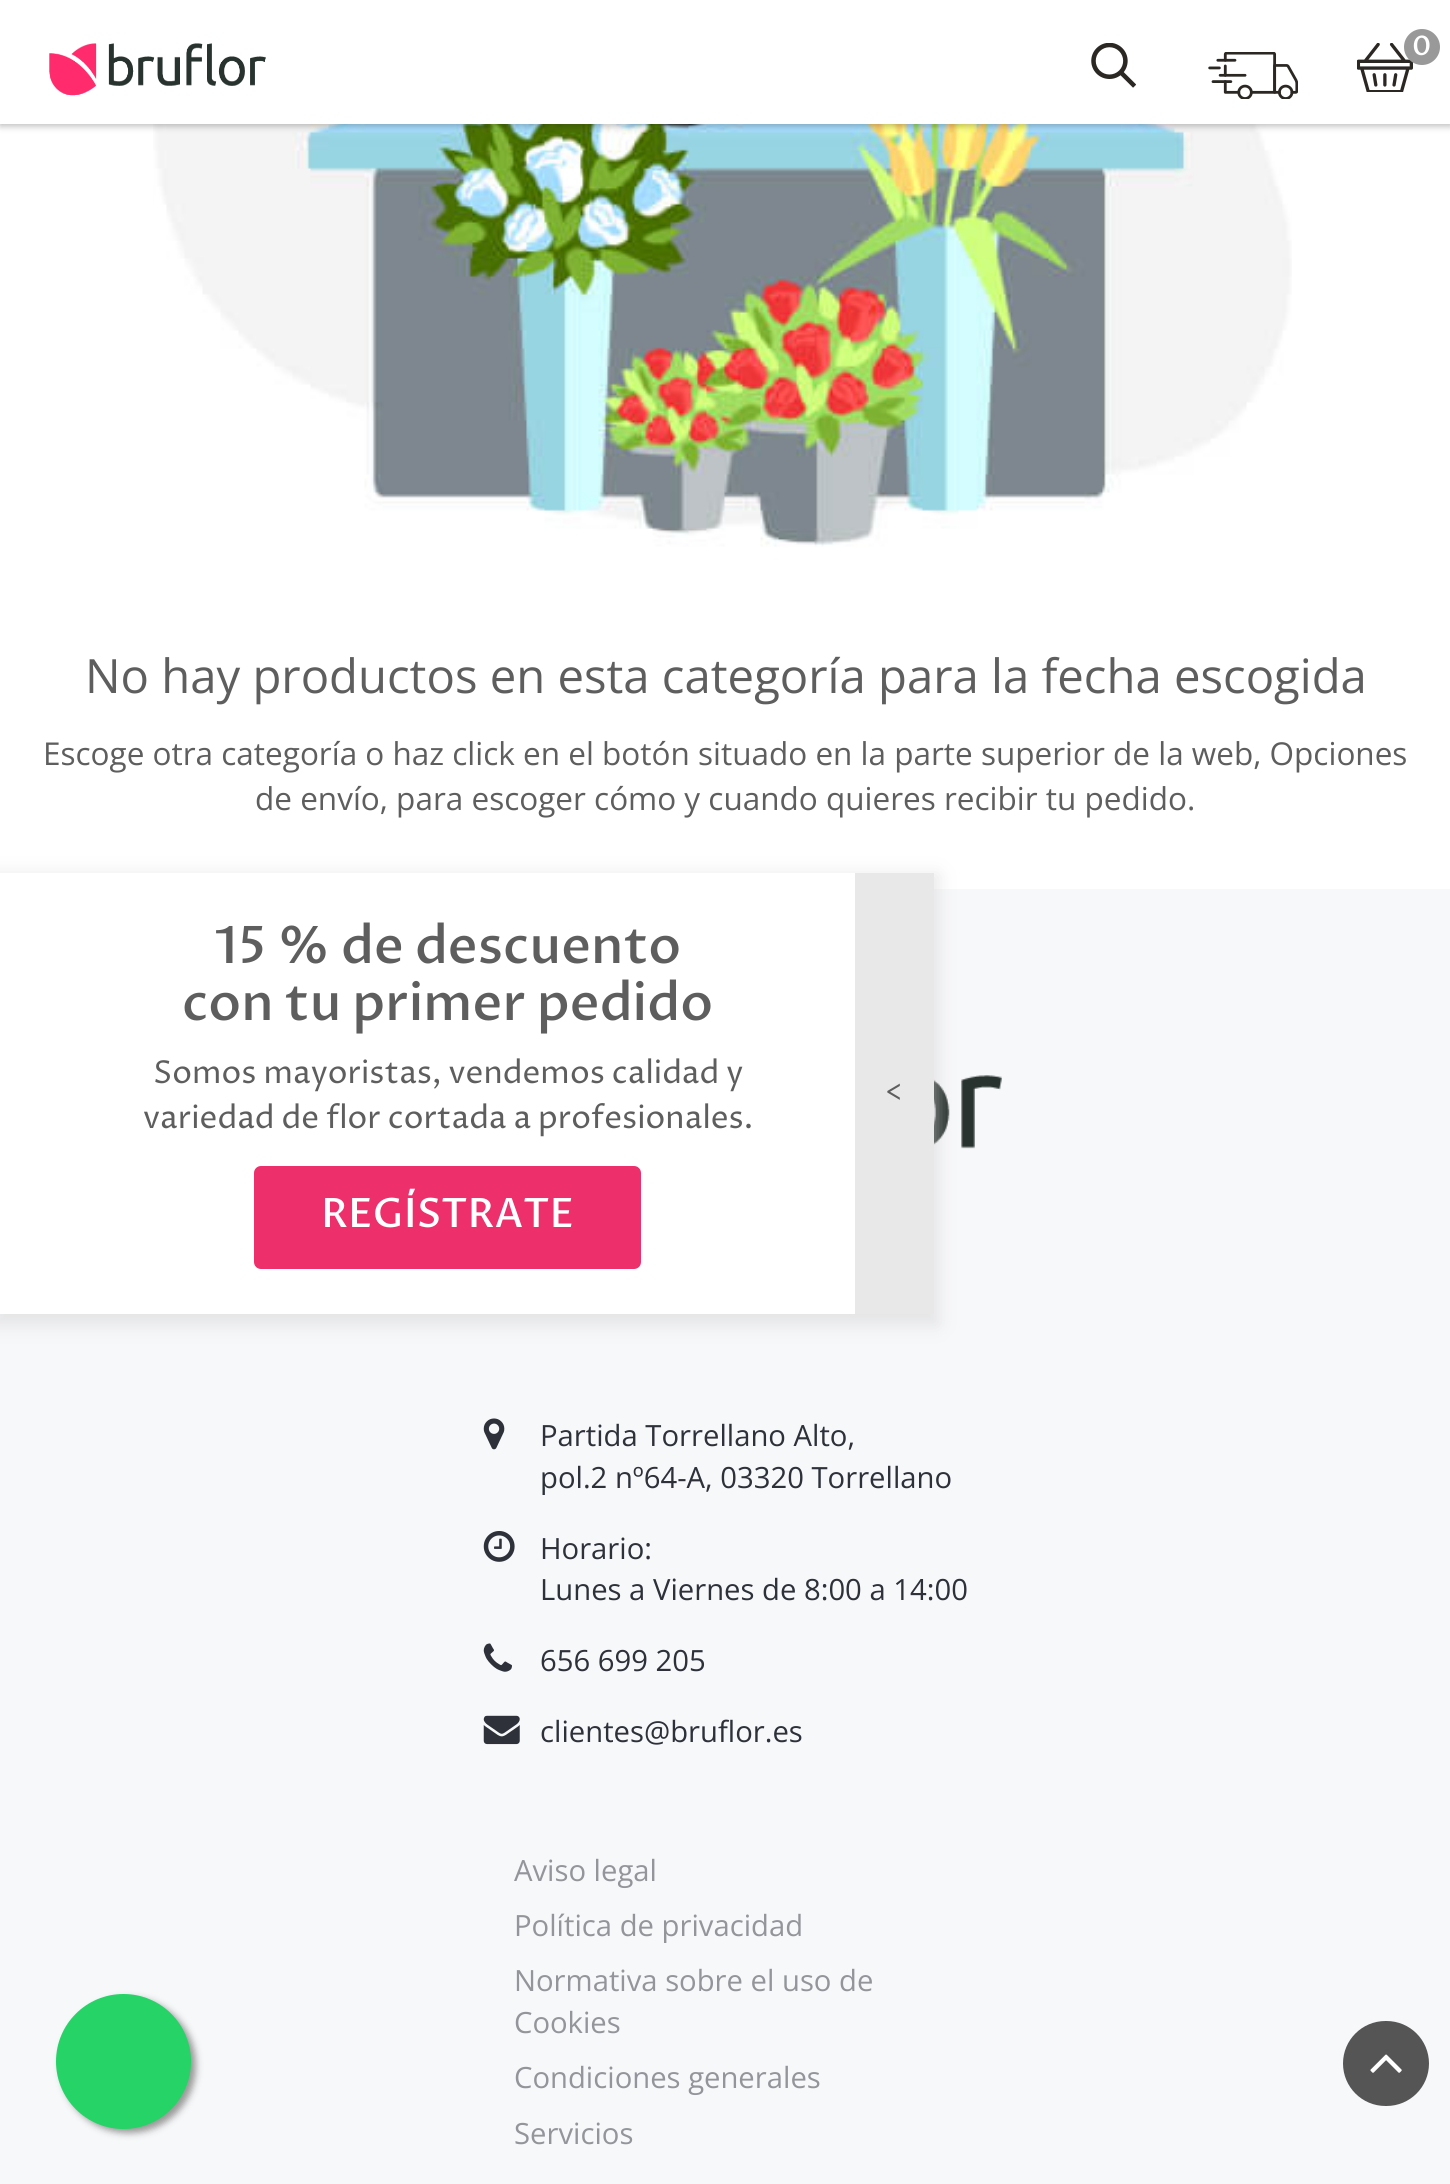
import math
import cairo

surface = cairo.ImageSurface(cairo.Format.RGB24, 1450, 2184)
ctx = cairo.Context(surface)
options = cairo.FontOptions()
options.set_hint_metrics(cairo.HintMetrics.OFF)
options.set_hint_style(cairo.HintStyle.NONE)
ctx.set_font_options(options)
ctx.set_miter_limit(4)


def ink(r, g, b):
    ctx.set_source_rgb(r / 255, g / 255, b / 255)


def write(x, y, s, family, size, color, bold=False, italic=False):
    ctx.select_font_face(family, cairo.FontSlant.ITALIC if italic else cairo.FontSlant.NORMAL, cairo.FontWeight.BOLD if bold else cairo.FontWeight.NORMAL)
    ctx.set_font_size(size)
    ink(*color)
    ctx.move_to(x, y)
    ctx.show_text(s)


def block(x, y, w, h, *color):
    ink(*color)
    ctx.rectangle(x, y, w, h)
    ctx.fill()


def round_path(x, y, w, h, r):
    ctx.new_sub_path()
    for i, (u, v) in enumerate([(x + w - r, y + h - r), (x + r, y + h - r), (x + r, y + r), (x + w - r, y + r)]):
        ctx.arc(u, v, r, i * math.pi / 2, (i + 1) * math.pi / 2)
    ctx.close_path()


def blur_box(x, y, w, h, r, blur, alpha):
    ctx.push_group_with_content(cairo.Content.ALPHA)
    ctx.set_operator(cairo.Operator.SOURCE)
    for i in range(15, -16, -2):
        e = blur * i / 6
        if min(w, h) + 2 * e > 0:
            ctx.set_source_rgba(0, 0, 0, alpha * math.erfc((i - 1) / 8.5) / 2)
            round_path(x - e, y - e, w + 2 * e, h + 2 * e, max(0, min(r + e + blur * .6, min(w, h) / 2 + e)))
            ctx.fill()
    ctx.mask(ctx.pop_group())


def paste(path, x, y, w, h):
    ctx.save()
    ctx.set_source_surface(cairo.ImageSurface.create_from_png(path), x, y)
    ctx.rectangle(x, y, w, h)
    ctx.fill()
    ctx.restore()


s1 = dict(family="Proza Libre Medium", size=27, color=(255, 255, 255))
s2 = dict(family="Open Sans", size=47.25, color=(94, 94, 94))
s3 = dict(family="Open Sans", size=31.5, color=(94, 94, 94))
s4 = dict(family="Open Sans", size=29.25, color=(46, 49, 58))
s5 = dict(family="Open Sans", size=29.25, color=(147, 149, 154))
s6 = dict(family="Proza Libre Medium", size=51.75, color=(94, 94, 94))
s7 = dict(family="Proza Libre", size=31.5, color=(94, 94, 94))
s8 = dict(family="Proza Libre Medium", size=40.5, color=(255, 255, 255))

ink(255, 255, 255)
ctx.paint()
paste("pic5.png", 153, 124, 1139, 423)
ink(25, 25, 25)
blur_box(0, 2, 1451, 124, 0, 3.5, 0.3)
block(0, 0, 1450, 124, 255, 255, 255)
paste("pic1.png", 49, 43, 217, 53)
paste("pic2.png", 1091, 43, 45, 45)
paste("pic3.png", 1208, 52, 90, 47)
paste("pic4.png", 1357, 43, 56, 49)
ink(153, 153, 153)
ctx.arc(1422, 47, 18, 0, 2 * math.pi)
ctx.fill()
write(1412, 55, "0", **s1)
block(0, 889, 1450, 1295, 247, 248, 250)
ink(153, 153, 153)
blur_box(61, 1998, 135, 135, 67.5, 3.5, 1)
ink(37, 211, 102)
ctx.arc(123.5, 2061.5, 67.5, 0, 2 * math.pi)
ctx.fill()
write(85, 693, "No hay productos en esta categoría para la fecha escogida", **s2)
write(43, 765, "Escoge otra categoría o haz click en el botón situado en la parte superior de la web, Opciones", **s3)
write(255, 810, "de envío, para escoger cómo y cuando quieres recibir tu pedido.", **s3)
paste("pic6.png", 934, 1075, 68, 74)
paste("pic7.png", 483, 1418, 22, 32)
write(540, 1446, "Partida Torrellano Alto,", **s4)
write(540, 1488, "pol.2 nº64-A, 03320 Torrellano", **s4)
paste("pic8.png", 483, 1531, 32, 31)
write(540, 1559, "Horario:", **s4)
write(540, 1600, "Lunes a Viernes de 8:00 a 14:00", **s4)
paste("pic9.png", 483, 1643, 29, 29)
write(540, 1671, "656 699 205", **s4)
paste("pic10.png", 483, 1715, 37, 30)
write(540, 1742, "clientes@bruflor.es", **s4)
write(514, 1881, "Aviso legal", **s5)
write(514, 1936, "Política de privacidad", **s5)
write(514, 1991, "Normativa sobre el uso de", **s5)
write(514, 2033, "Cookies", **s5)
write(514, 2088, "Condiciones generales", **s5)
write(514, 2144, "Servicios", **s5)
ink(211, 211, 211)
blur_box(-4, 875, 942, 450, 0, 9, 0.55)
block(0, 873, 855, 441, 255, 255, 255)
write(214, 963, "15 % de descuento", **s6)
write(182, 1020, "con tu primer pedido", **s6)
write(153, 1083, "Somos mayoristas, vendemos calidad y", **s7)
write(143, 1128, "variedad de flor cortada a profesionales.", **s7)
ink(237, 47, 107)
round_path(254, 1166, 387, 103, 7)
ctx.fill()
write(321, 1227, "REGÍSTRATE", **s8)
block(855, 873, 79, 441, 232, 232, 232)
write(885, 1101, "<", **s7)
ink(85, 85, 85)
round_path(1343, 2021, 86, 85, 42.5)
ctx.fill()
paste("pic11.png", 1370, 2054, 32, 19)
surface.write_to_png("screenshot.png")
